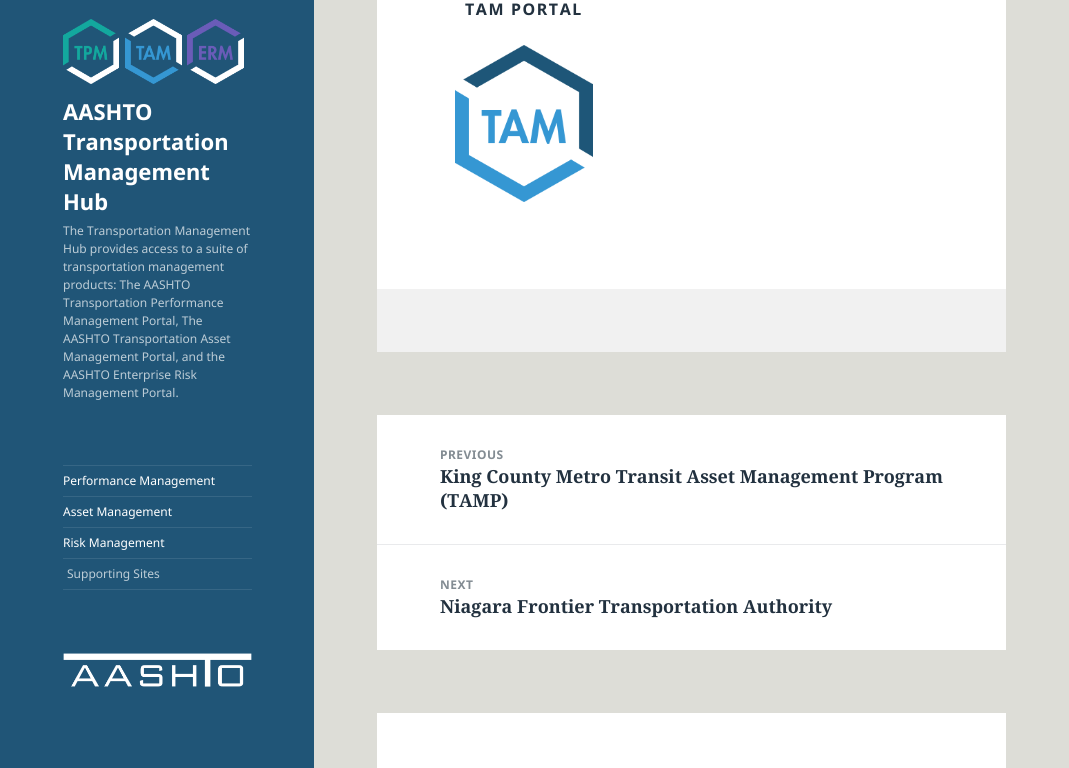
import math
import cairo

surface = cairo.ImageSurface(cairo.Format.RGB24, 1069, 768)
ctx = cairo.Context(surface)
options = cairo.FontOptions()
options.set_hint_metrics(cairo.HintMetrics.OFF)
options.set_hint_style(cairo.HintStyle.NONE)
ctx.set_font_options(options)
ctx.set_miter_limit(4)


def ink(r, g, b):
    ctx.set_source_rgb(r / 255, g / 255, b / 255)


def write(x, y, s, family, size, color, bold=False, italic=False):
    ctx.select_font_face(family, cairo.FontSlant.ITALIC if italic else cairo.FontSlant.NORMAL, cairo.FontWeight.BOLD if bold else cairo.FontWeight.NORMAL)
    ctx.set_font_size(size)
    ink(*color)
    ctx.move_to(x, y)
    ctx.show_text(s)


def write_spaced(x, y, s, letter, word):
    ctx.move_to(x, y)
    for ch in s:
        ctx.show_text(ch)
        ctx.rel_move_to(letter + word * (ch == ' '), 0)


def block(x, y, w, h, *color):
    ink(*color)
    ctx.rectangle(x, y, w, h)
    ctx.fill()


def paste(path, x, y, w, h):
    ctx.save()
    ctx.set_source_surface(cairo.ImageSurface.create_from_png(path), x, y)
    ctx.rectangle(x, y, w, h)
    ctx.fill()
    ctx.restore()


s1 = dict(family="Noto Sans", size=22, color=(255, 255, 255), bold=True)
s2 = dict(family="Noto Sans", size=12, color=(188, 204, 214))
s3 = dict(family="Noto Sans", size=12, color=(255, 255, 255))
s4 = dict(family="Noto Serif", size=18, color=(34, 49, 63), bold=True)

ink(221, 221, 215)
ctx.paint()
block(0, 0, 314, 768, 32, 85, 119)
paste("pic1.png", 63, 19, 56, 65)
paste("pic2.png", 125, 19, 57, 65)
paste("pic3.png", 187, 19, 57, 65)
write(63, 120, "AASHTO", **s1)
write(63, 150, "Transportation", **s1)
write(63, 180, "Management", **s1)
write(63, 210, "Hub", **s1)
write(63, 235, "The Transportation Management", **s2)
write(63, 253, "Hub provides access to a suite of", **s2)
write(63, 271, "transportation management", **s2)
write(63, 289, "products: The AASHTO", **s2)
write(63, 307, "Transportation Performance", **s2)
write(63, 325, "Management Portal, The", **s2)
write(63, 343, "AASHTO Transportation Asset", **s2)
write(63, 361, "Management Portal, and the", **s2)
write(63, 379, "AASHTO Enterprise Risk", **s2)
write(63, 397, "Management Portal.", **s2)
block(63, 465, 189, 1, 54, 102, 133)
block(63, 589, 189, 1, 54, 102, 133)
write(63, 485, "Performance Management", **s3)
block(63, 496, 189, 1, 54, 102, 133)
write(63, 516, "Asset Management", **s3)
block(63, 527, 189, 1, 54, 102, 133)
write(63, 547, "Risk Management", **s3)
block(63, 558, 189, 1, 54, 102, 133)
write(67, 578, "Supporting Sites", **s2)
paste("pic4.png", 63, 653, 189, 34)
block(377, 0, 629, 289, 255, 255, 255)
ctx.select_font_face("Noto Sans", cairo.FontSlant.NORMAL, cairo.FontWeight.BOLD)
ctx.set_font_size(16)
ink(34, 49, 63)
write_spaced(465, 15, "TAM PORTAL", 1.6, 0)
paste("pic5.png", 455, 45, 138, 157)
block(377, 289, 629, 63, 241, 241, 241)
block(377, 415, 629, 235, 255, 255, 255)
ctx.set_font_size(12)
ink(131, 140, 147)
write_spaced(440, 459, "PREVIOUS", 0.5, 0)
write(440, 483, "King County Metro Transit Asset Management Program", **s4)
write(440, 507, "(TAMP)", **s4)
block(377, 544, 629, 1, 233, 234, 236)
ctx.select_font_face("Noto Sans", cairo.FontSlant.NORMAL, cairo.FontWeight.BOLD)
ctx.set_font_size(12)
ink(131, 140, 147)
write_spaced(440, 589, "NEXT", 0.5, 0)
write(440, 613, "Niagara Frontier Transportation Authority", **s4)
block(377, 713, 629, 55, 255, 255, 255)
surface.write_to_png("screenshot.png")
